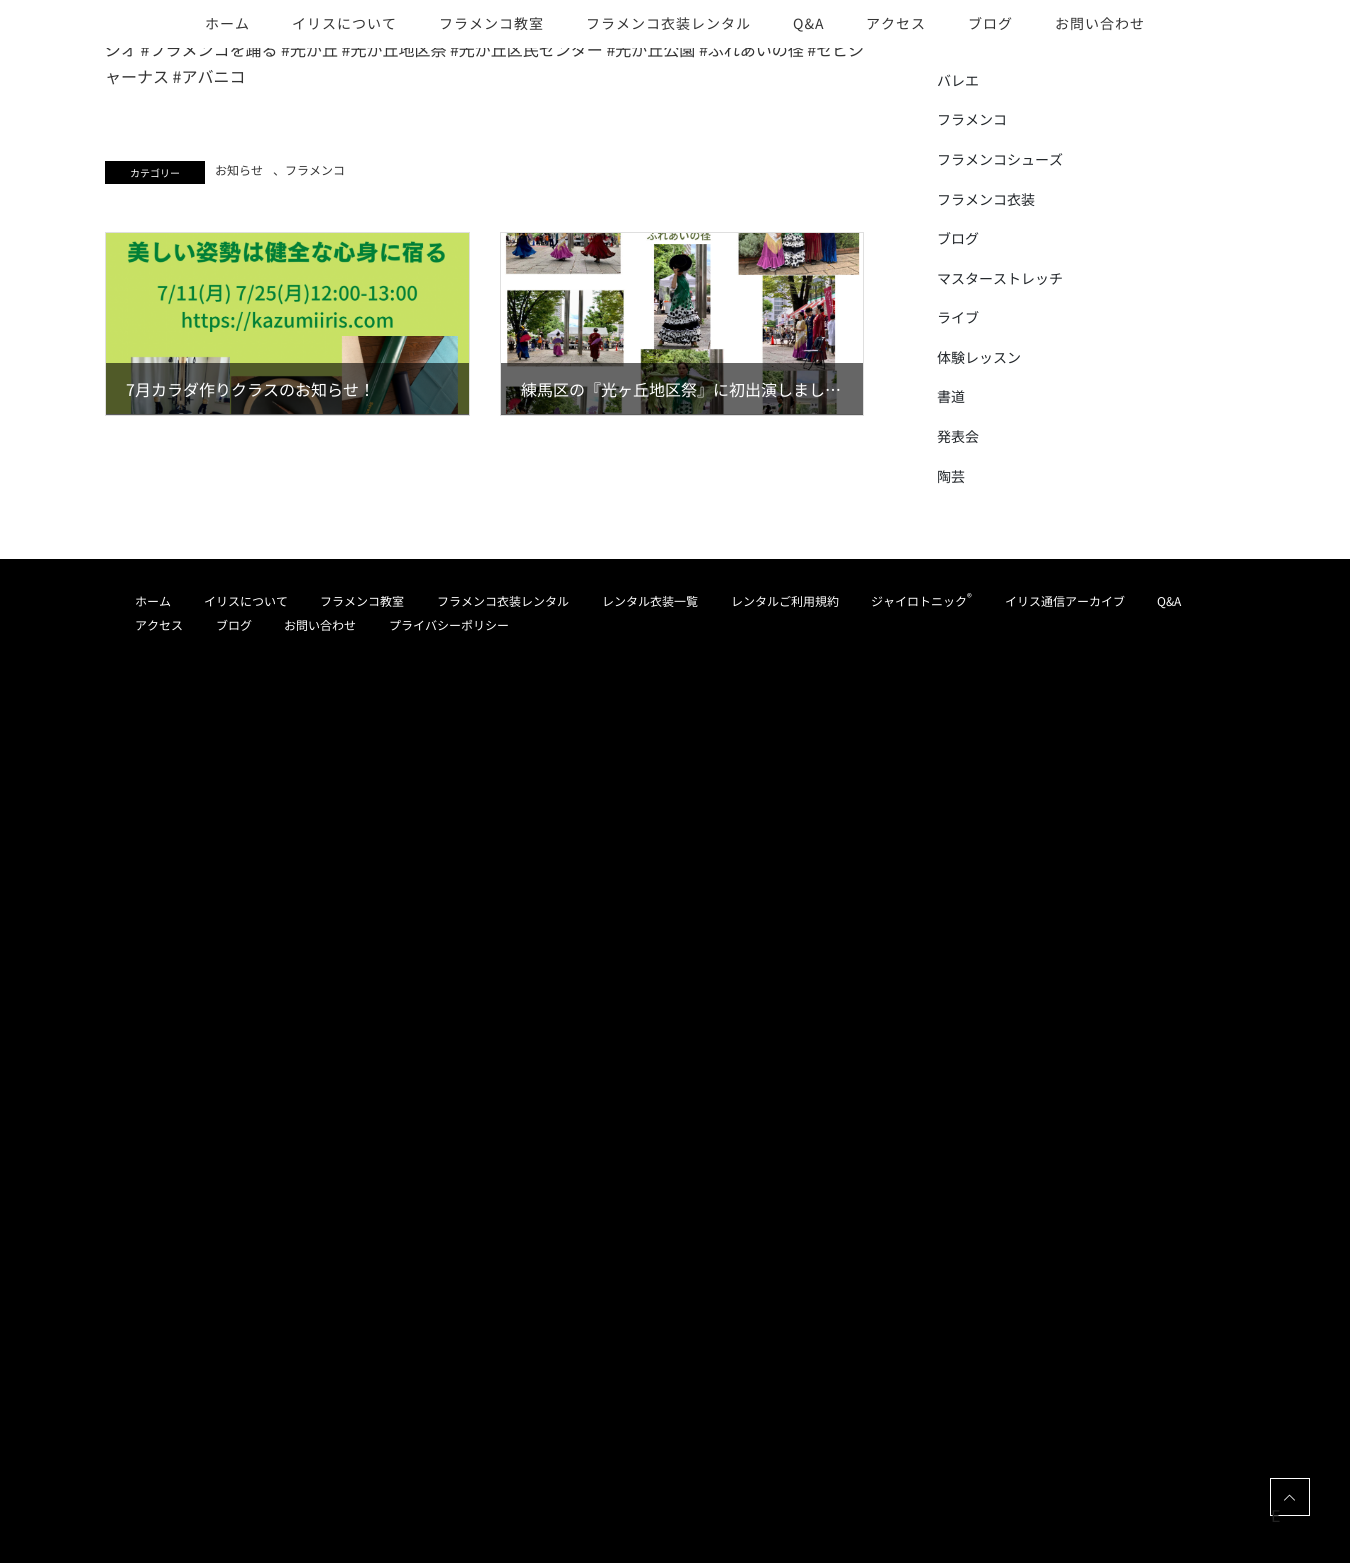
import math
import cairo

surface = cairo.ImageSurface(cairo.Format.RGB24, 1350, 1563)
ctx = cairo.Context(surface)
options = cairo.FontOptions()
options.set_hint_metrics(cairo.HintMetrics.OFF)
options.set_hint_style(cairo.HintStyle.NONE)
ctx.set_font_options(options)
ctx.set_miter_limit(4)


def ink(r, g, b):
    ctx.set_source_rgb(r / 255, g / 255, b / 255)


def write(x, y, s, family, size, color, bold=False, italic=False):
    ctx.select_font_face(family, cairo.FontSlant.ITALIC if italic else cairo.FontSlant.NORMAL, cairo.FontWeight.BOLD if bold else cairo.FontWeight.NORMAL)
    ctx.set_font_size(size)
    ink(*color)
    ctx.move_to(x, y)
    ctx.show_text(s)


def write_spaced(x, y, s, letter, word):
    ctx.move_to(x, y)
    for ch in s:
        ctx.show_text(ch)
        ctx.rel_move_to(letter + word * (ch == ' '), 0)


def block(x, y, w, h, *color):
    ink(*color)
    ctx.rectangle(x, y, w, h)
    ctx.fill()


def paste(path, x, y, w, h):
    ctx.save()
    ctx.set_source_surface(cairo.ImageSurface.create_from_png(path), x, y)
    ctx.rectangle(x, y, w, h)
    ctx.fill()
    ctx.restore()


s1 = dict(family="Noto Sans JP", size=16, color=(51, 51, 51))
s2 = dict(family="Noto Sans JP", size=10, color=(255, 255, 255))
s3 = dict(family="Noto Sans JP", size=12, color=(51, 51, 51))
s4 = dict(family="Noto Sans JP", size=16, color=(255, 255, 255))
s5 = dict(family="Noto Sans JP", size=14, color=(33, 37, 41))
s6 = dict(family="Noto Sans JP", size=12, color=(255, 255, 255))
s7 = dict(family="Noto Sans JP", size=16, color=(33, 33, 33))

ink(255, 255, 255)
ctx.paint()
write(105, 56, "ジオ #フラメンコを踊る #光が丘 #光が丘地区祭 #光が丘区民センター #光が丘公園 #ふれあいの径 #セビジ", **s1)
block(106, 42, 758, 6, 255, 255, 255)
ctx.set_font_size(14)
ink(51, 51, 51)
write_spaced(205, 29, "ホーム", 1, 0)
write_spaced(292, 29, "イリスについて", 1, 0)
write_spaced(439, 29, "フラメンコ教室", 1, 0)
write_spaced(586, 29, "フラメンコ衣装レンタル", 1, 0)
write_spaced(793, 29, "Q&A", 1, 0)
write_spaced(866, 29, "アクセス", 1, 0)
write_spaced(968, 29, "ブログ", 1, 0)
write_spaced(1055, 29, "お問い合わせ", 1, 0)
write(105, 83, "ャーナス #アバニコ", **s1)
block(105, 161, 100, 23, 0, 0, 0)
write(130, 177, "カテゴリー", **s2)
write(215, 175, "お知らせ", **s3)
write(273, 175, "、フラメンコ", **s3)
ctx.rectangle(105.5, 232.5, 364, 183)
ink(223, 223, 223)
ctx.set_line_width(1)
ctx.stroke()
paste("pic1.png", 106, 233, 363, 181)
block(106, 414, 363, 1, 229, 229, 229)
ctx.set_source_rgba(0, 0, 0, 0.6)
ctx.rectangle(106, 363, 363, 52)
ctx.fill()
write(126, 396, "7月カラダ作りクラスのお知らせ！", **s4)
ctx.rectangle(500.5, 232.5, 363, 183)
ink(223, 223, 223)
ctx.stroke()
paste("pic2.png", 504, 233, 356, 181)
block(501, 414, 362, 1, 229, 229, 229)
ctx.set_source_rgba(0, 0, 0, 0.6)
ctx.rectangle(501, 363, 362, 52)
ctx.fill()
write(521, 396, "練馬区の『光ヶ丘地区祭』に初出演しまし…", **s4)
write(937, 86, "バレエ", **s5)
write(937, 125, "フラメンコ", **s5)
write(937, 165, "フラメンコシューズ", **s5)
write(937, 205, "フラメンコ衣装", **s5)
write(937, 244, "ブログ", **s5)
write(937, 284, "マスターストレッチ", **s5)
write(937, 323, "ライブ", **s5)
write(937, 363, "体験レッスン", **s5)
write(937, 402, "書道", **s5)
write(937, 442, "発表会", **s5)
write(937, 482, "陶芸", **s5)
block(0, 559, 1350, 1004, 0, 0, 0)
write(135, 606, "ホーム", **s6)
write(204, 606, "イリスについて", **s6)
write(320, 606, "フラメンコ教室", **s6)
write(437, 606, "フラメンコ衣装レンタル", **s6)
write(602, 606, "レンタル衣装一覧", **s6)
write(731, 606, "レンタルご利用規約", **s6)
write(967, 601, "®", **s2)
write(871, 606, "ジャイロトニック", **s6)
write(1005, 606, "イリス通信アーカイブ", **s6)
write(1157, 606, "Q&A", **s6)
write(135, 630, "アクセス", **s6)
write(216, 630, "ブログ", **s6)
write(284, 630, "お問い合わせ", **s6)
write(389, 630, "プライバシーポリシー", **s6)
paste("pic3.png", 1284, 1494, 11, 7)
ctx.rectangle(1270.5, 1478.5, 39, 37)
ctx.stroke()
write(1271, 1522, "E", **s7)
surface.write_to_png("screenshot.png")
